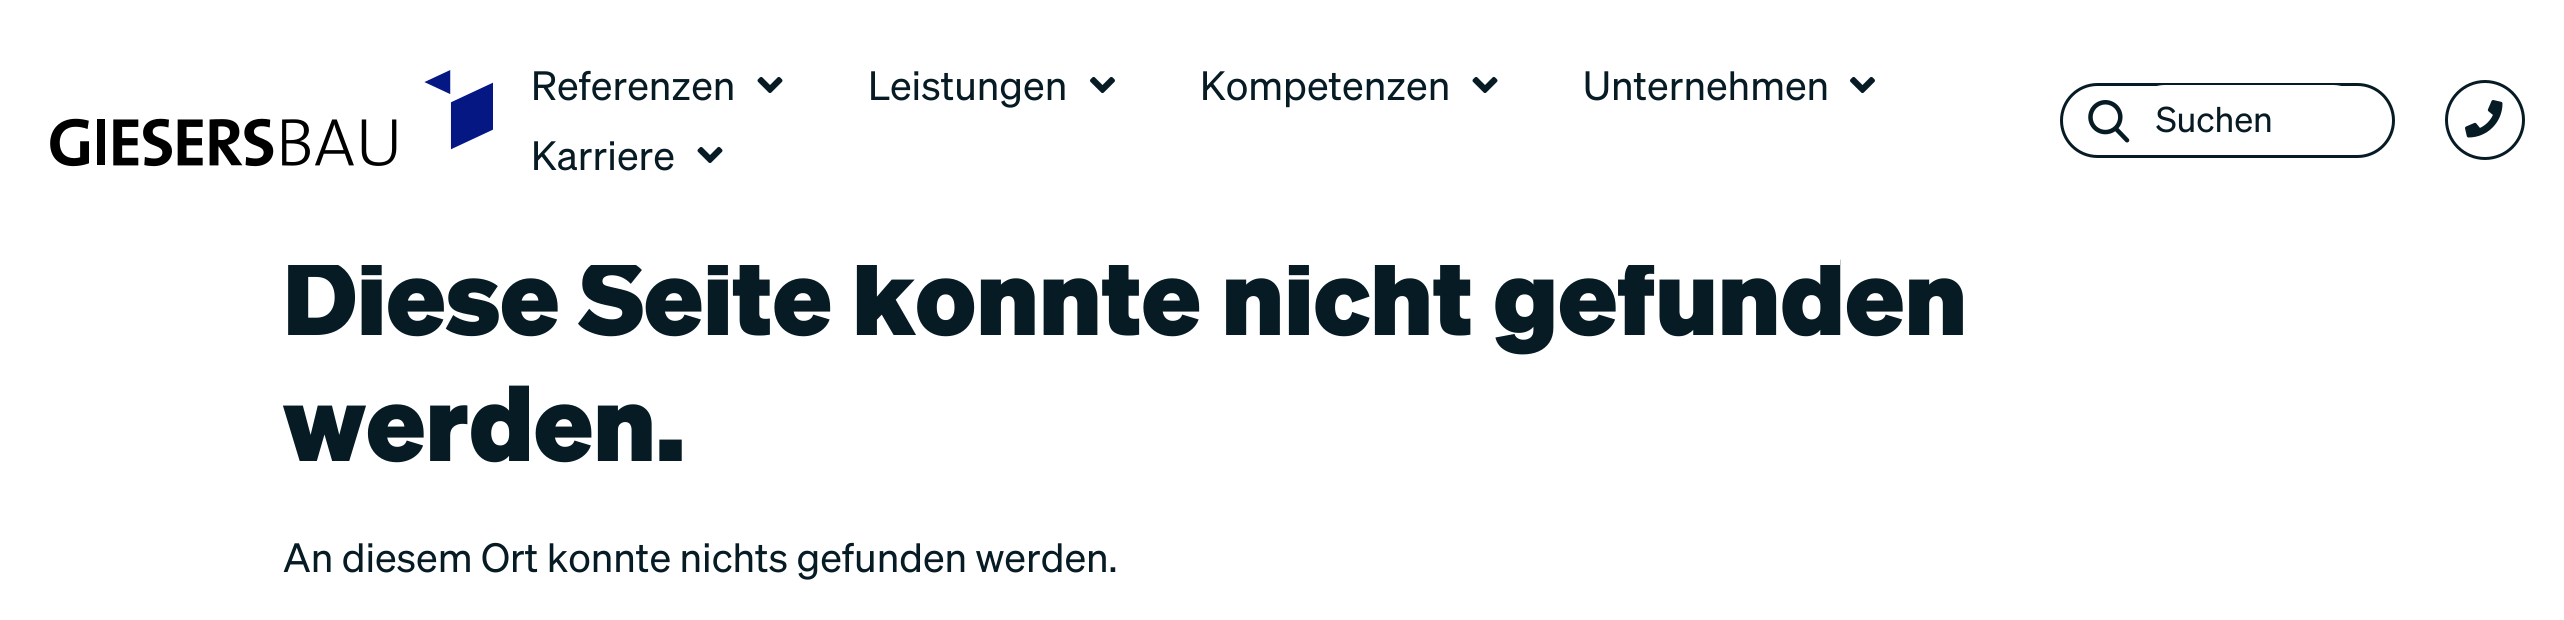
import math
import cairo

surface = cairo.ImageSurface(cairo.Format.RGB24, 2564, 620)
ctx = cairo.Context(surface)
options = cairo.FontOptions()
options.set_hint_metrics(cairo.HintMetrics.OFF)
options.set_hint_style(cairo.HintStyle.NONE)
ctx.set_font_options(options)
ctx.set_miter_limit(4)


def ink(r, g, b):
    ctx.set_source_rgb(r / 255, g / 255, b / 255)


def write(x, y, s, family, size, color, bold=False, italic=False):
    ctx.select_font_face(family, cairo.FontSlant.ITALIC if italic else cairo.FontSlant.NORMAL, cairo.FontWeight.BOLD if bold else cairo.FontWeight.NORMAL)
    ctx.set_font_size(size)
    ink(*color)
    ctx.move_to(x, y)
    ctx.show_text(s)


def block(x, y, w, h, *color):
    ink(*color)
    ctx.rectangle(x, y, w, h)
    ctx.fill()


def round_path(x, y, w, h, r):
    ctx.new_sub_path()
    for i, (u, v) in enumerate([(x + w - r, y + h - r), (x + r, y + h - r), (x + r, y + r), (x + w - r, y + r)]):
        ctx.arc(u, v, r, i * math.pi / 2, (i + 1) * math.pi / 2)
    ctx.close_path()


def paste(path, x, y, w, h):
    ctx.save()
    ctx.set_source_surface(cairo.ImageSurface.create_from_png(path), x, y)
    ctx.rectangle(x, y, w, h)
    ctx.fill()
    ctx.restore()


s1 = dict(family="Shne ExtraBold", size=105, color=(7, 27, 37))
s2 = dict(family="Shne", size=40, color=(7, 27, 37))
s3 = dict(family="Shne", size=35, color=(7, 27, 37))

ink(255, 255, 255)
ctx.paint()
write(283, 335, "Diese Seite konnte nicht gefunden", **s1)
block(287, 258, 1553, 7, 255, 255, 255)
paste("pic1.png", 50, 70, 443, 97)
write(531, 100, "Referenzen", **s2)
paste("pic2.png", 757, 76, 26, 17)
write(868, 100, "Leistungen", **s2)
paste("pic3.png", 1090, 76, 25, 18)
write(1200, 100, "Kompetenzen", **s2)
paste("pic2.png", 1472, 76, 26, 17)
write(1583, 100, "Unternehmen", **s2)
paste("pic3.png", 1850, 76, 25, 18)
write(531, 170, "Karriere", **s2)
paste("pic2.png", 697, 146, 26, 17)
round_path(2061.5, 84.5, 332, 72, 36)
ctx.set_line_width(3)
ctx.stroke()
paste("pic4.png", 2088, 100, 42, 43)
ink(255, 255, 255)
round_path(2130, 85, 238, 70, 35)
ctx.fill()
write(2156, 132, "Suchen", **s3)
ctx.new_path()
ctx.arc(2485, 120, 38.5, 0, 2 * math.pi)
ctx.stroke()
paste("pic5.png", 2465, 100, 38, 38)
write(283, 461, "werden.", **s1)
write(283, 572, "An diesem Ort konnte nichts gefunden werden.", **s2)
surface.write_to_png("screenshot.png")
